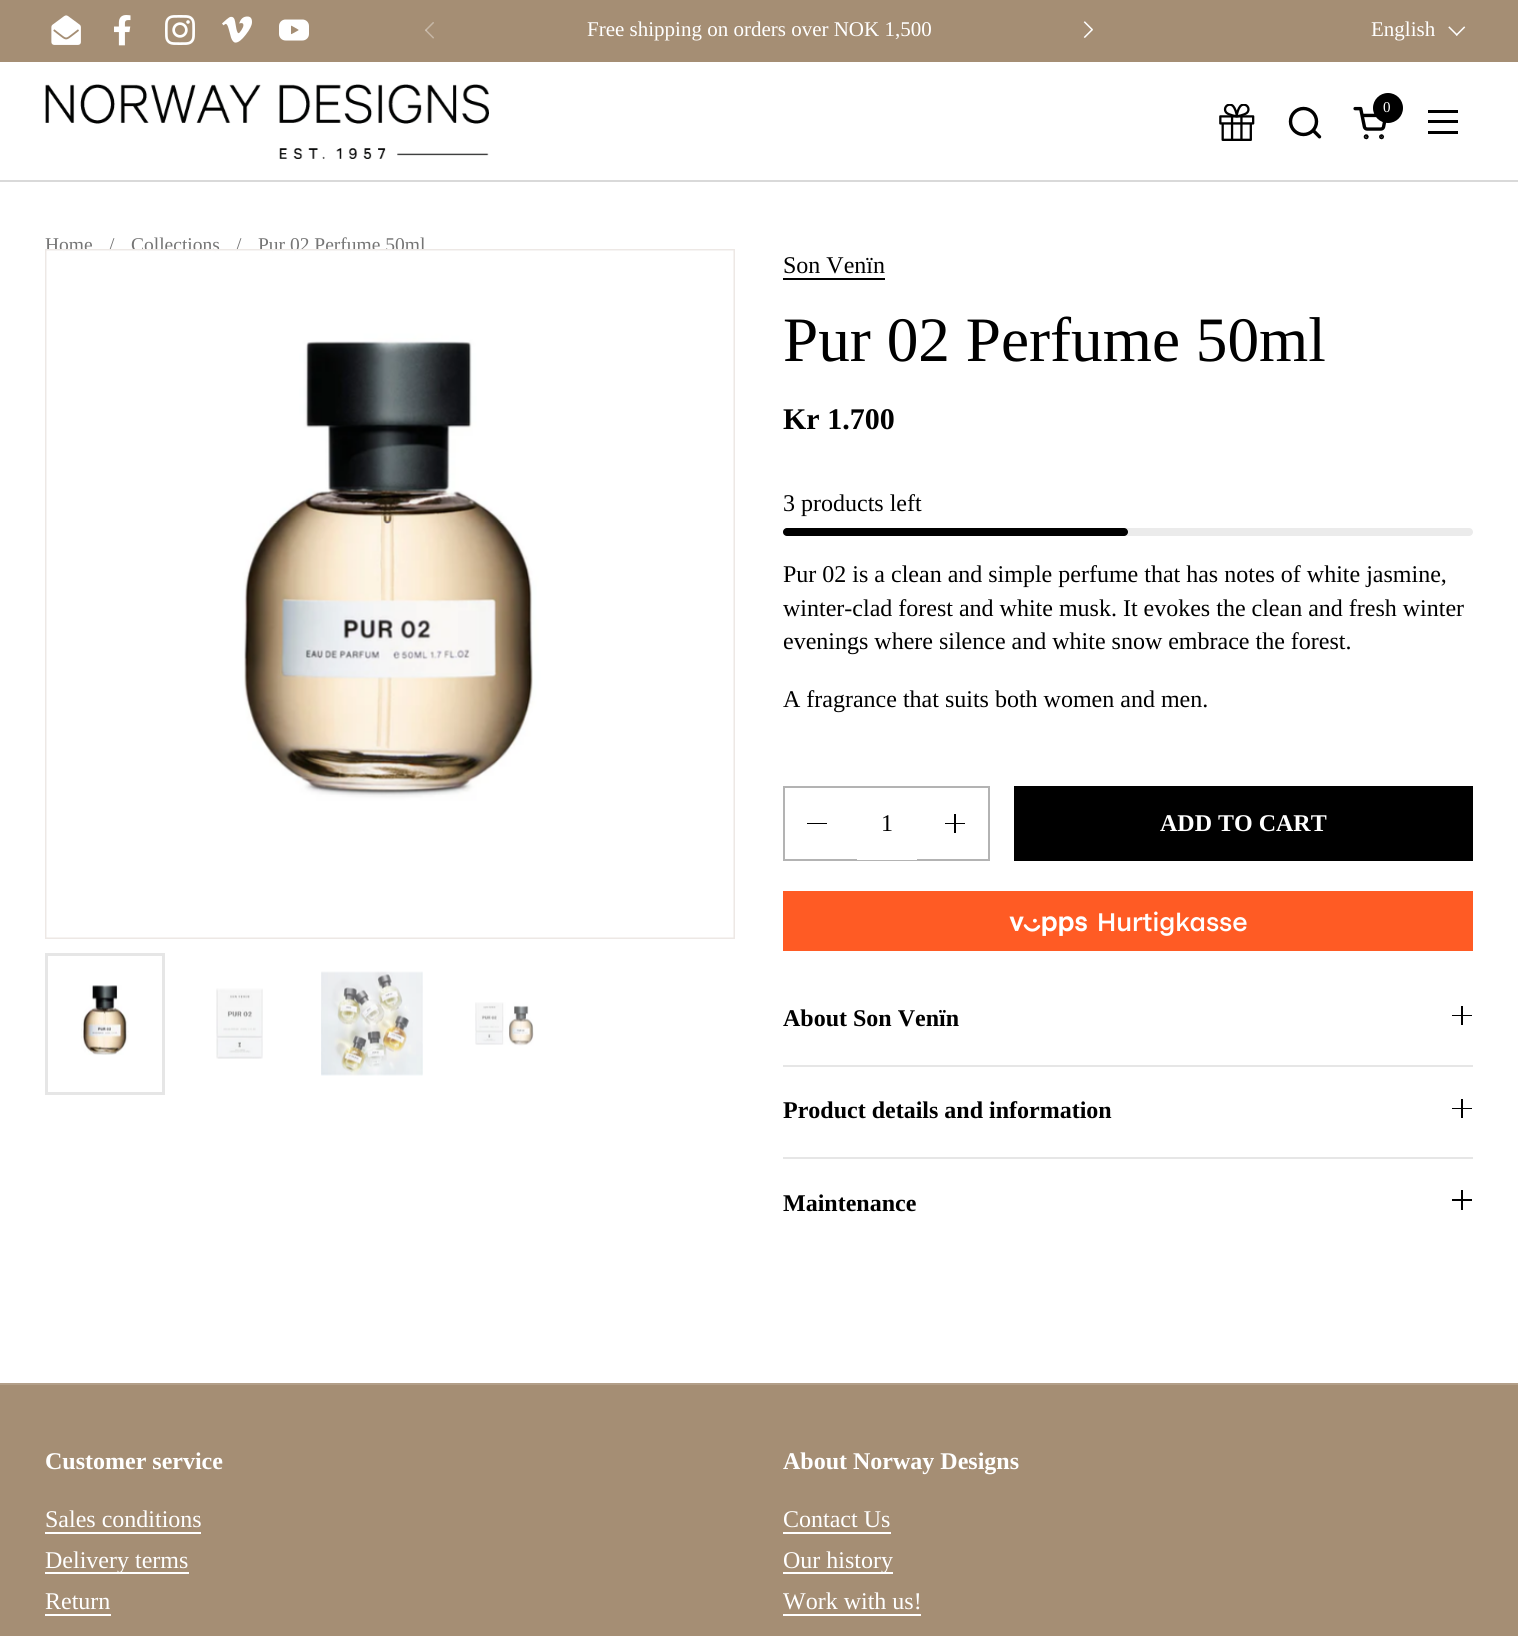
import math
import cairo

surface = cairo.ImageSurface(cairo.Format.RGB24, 1518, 1636)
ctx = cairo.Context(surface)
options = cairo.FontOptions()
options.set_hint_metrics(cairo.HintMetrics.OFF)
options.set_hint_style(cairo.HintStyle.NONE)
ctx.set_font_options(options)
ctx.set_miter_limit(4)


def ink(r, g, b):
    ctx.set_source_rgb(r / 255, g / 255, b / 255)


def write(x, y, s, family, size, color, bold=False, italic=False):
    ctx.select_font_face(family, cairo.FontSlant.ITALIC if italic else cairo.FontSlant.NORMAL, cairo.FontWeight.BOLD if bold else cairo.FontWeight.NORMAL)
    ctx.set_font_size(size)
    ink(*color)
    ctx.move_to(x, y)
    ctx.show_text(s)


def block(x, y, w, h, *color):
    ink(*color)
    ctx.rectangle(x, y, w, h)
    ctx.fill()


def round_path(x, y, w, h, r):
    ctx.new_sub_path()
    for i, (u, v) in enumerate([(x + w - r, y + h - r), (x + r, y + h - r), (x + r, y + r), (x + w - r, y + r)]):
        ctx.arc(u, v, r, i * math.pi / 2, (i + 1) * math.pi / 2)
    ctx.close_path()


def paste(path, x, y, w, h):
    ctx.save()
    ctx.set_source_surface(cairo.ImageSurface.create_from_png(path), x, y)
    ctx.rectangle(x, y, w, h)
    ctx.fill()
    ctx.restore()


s1 = dict(family="Liberation Serif", size=21, color=(255, 255, 255))
s2 = dict(family="Liberation Serif", size=15, color=(255, 255, 255))
s3 = dict(family="Liberation Serif", size=19.5, color=(117, 117, 117))
s4 = dict(family="Liberation Serif", size=24, color=(0, 0, 0))
s5 = dict(family="Liberation Serif", size=63.25, color=(0, 0, 0))
s6 = dict(family="Liberation Serif", size=30, color=(0, 0, 0), bold=True)
s7 = dict(family="Liberation Serif", size=24, color=(255, 255, 255), bold=True)
s8 = dict(family="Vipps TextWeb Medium", size=27, color=(255, 255, 255))
s9 = dict(family="Liberation Serif", size=24, color=(0, 0, 0), bold=True)
s10 = dict(family="Liberation Serif", size=24, color=(255, 255, 255))

ink(255, 255, 255)
ctx.paint()
block(0, 0, 1518, 62, 165, 142, 116)
paste("pic1.png", 51, 15, 30, 30)
paste("pic2.png", 114, 15, 17, 31)
paste("pic3.png", 165, 15, 30, 30)
paste("pic4.png", 222, 16, 30, 27)
paste("pic5.png", 279, 19, 30, 22)
paste("pic6.png", 425, 22, 9, 17)
write(587, 36, "Free shipping on orders over NOK 1,500", **s1)
paste("pic7.png", 1083, 21, 10, 17)
write(1371, 36, "English", **s1)
paste("pic8.png", 1448, 26, 18, 10)
paste("pic9.png", 45, 84, 444, 75)
paste("pic10.png", 1219, 104, 36, 37)
paste("pic11.png", 1288, 106, 34, 33)
ink(0, 0, 0)
ctx.arc(1388, 108, 15, 0, 2 * math.pi)
ctx.fill()
write(1383, 112, "0", **s2)
paste("pic12.png", 1353, 106, 33, 34)
block(1428, 110, 30, 3, 0, 0, 0)
block(1428, 120, 30, 3, 0, 0, 0)
block(1428, 131, 30, 3, 0, 0, 0)
block(0, 180, 1518, 2, 217, 217, 217)
write(45, 251, "Home", **s3)
write(109, 251, "/", **s3)
write(131, 251, "Collections", **s3)
write(236, 251, "/", **s3)
write(258, 251, "Pur 02 Perfume 50ml", **s3)
ctx.rectangle(46, 250, 688, 688)
ink(237, 232, 229)
ctx.stroke()
paste("pic13.png", 46, 250, 688, 688)
ctx.rectangle(46.5, 954.5, 117, 139)
ink(230, 230, 230)
ctx.set_line_width(3)
ctx.stroke()
paste("pic14.png", 81, 985, 48, 70)
paste("pic15.png", 216, 988, 47, 71)
paste("pic16.png", 321, 971, 102, 105)
paste("pic17.png", 475, 1002, 59, 44)
write(783, 273, "Son Venïn", **s4)
block(783, 278, 102, 2, 0, 0, 0)
write(783, 361, "Pur 02 Perfume 50ml", **s5)
write(783, 429, "Kr 1.700", **s6)
write(783, 511, "3 products left", **s4)
ink(235, 235, 235)
round_path(783, 528, 690, 8, 4)
ctx.fill()
ink(0, 0, 0)
round_path(783, 528, 345, 8, 4)
ctx.fill()
write(783, 582, "Pur 02 is a clean and simple perfume that has notes of white jasmine,", **s4)
write(783, 616, "winter-clad forest and white musk. It evokes the clean and fresh winter", **s4)
write(783, 649, "evenings where silence and white snow embrace the forest.", **s4)
write(783, 707, "A fragrance that suits both women and men.", **s4)
ctx.rectangle(784, 787, 205, 73)
ink(179, 179, 179)
ctx.set_line_width(2)
ctx.stroke()
block(807, 823, 20, 1, 0, 0, 0)
block(857, 859, 60, 1, 255, 255, 255)
write(881, 831, "1", **s4)
block(954, 814, 2, 19, 0, 0, 0)
block(945, 823, 20, 1, 0, 0, 0)
block(1014, 786, 459, 75, 0, 0, 0)
write(1160, 831, "ADD TO CART", **s7)
block(783, 891, 690, 60, 255, 91, 36)
paste("pic18.png", 1009, 916, 78, 20)
write(1097, 931, "Hurtigkasse", **s8)
write(783, 1026, "About Son Venïn", **s9)
block(1461, 1006, 2, 19, 0, 0, 0)
block(1452, 1015, 20, 1, 0, 0, 0)
block(783, 1065, 690, 2, 230, 230, 230)
write(783, 1118, "Product details and information", **s9)
block(1461, 1099, 2, 19, 0, 0, 0)
block(1452, 1108, 20, 1, 0, 0, 0)
block(783, 1157, 690, 2, 230, 230, 230)
write(783, 1211, "Maintenance", **s9)
block(1461, 1190, 2, 20, 0, 0, 0)
block(1452, 1199, 20, 2, 0, 0, 0)
block(0, 1385, 1518, 251, 165, 142, 116)
block(0, 1383, 1518, 2, 179, 159, 137)
write(45, 1469, "Customer service", **s7)
write(45, 1527, "Sales conditions", **s10)
block(45, 1532, 156, 2, 255, 255, 255)
block(45, 1572, 144, 2, 255, 255, 255)
write(45, 1568, "Delivery terms", **s10)
write(45, 1609, "Return", **s10)
block(45, 1614, 66, 2, 255, 255, 255)
write(783, 1469, "About Norway Designs", **s7)
write(783, 1527, "Contact Us", **s10)
block(783, 1532, 108, 2, 255, 255, 255)
block(783, 1572, 110, 2, 255, 255, 255)
write(783, 1568, "Our history", **s10)
write(783, 1609, "Work with us!", **s10)
block(783, 1614, 138, 2, 255, 255, 255)
surface.write_to_png("screenshot.png")
